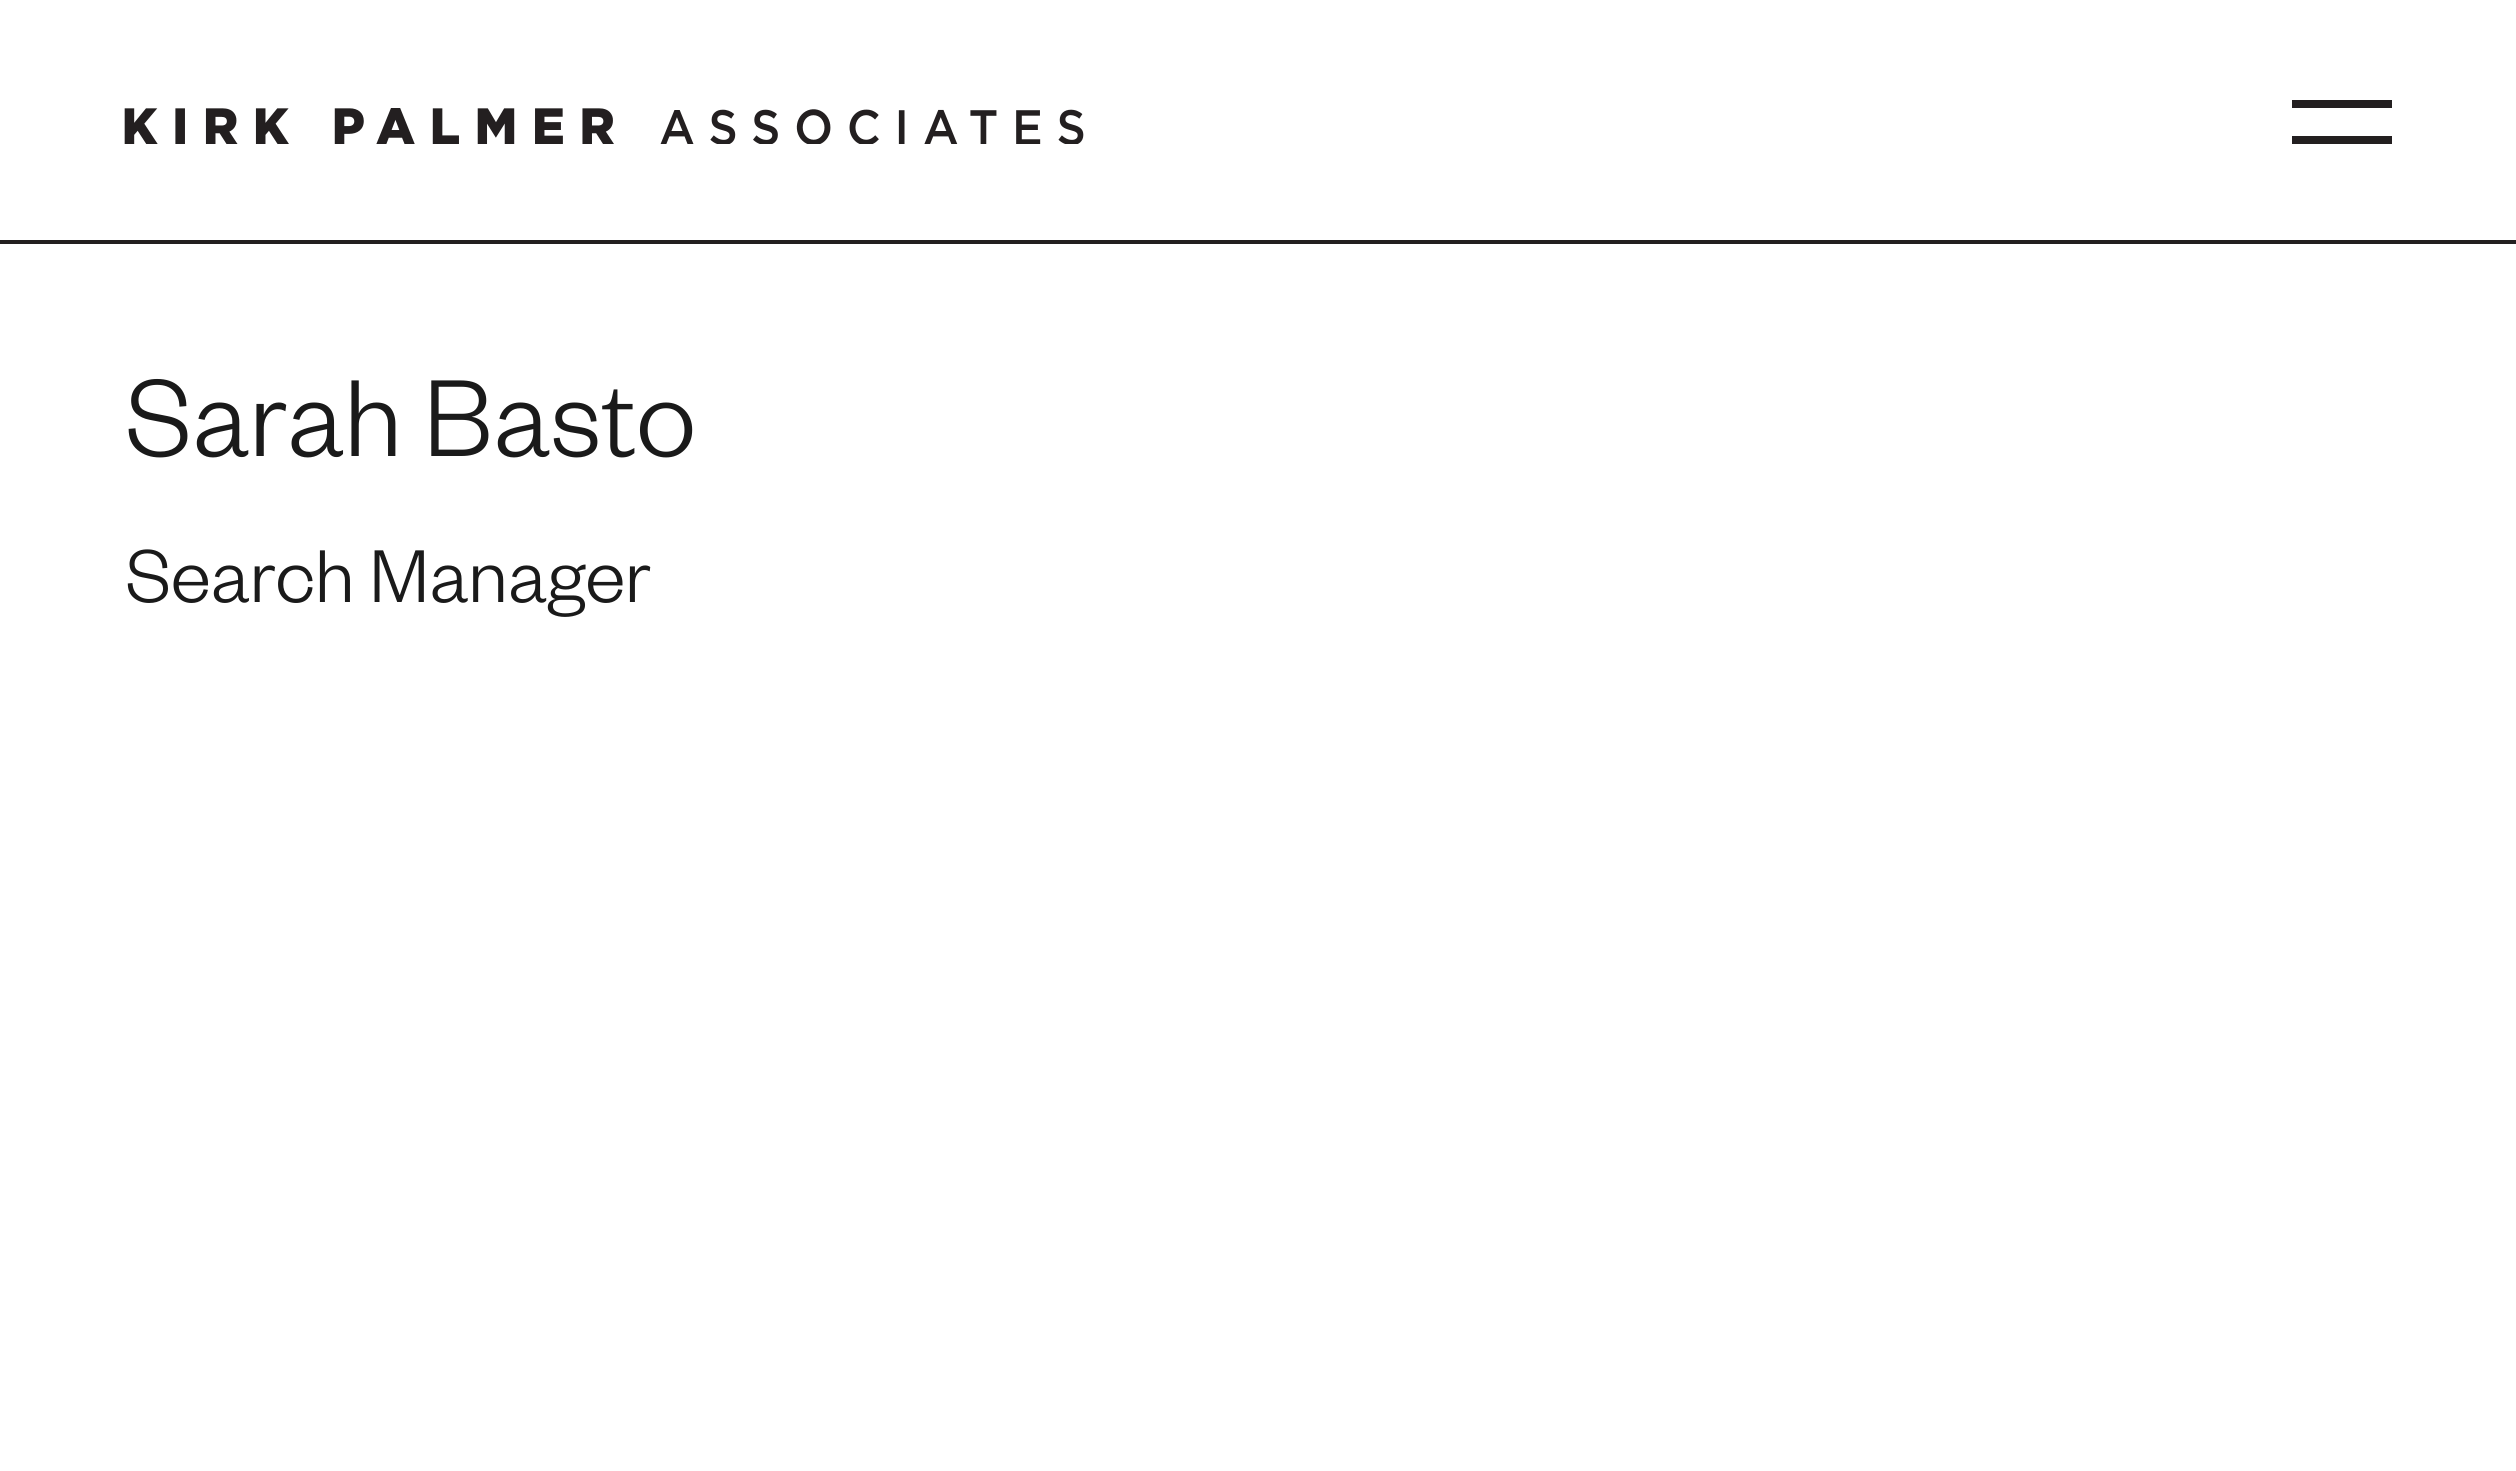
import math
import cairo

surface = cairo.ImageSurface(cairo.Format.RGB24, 2516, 1471)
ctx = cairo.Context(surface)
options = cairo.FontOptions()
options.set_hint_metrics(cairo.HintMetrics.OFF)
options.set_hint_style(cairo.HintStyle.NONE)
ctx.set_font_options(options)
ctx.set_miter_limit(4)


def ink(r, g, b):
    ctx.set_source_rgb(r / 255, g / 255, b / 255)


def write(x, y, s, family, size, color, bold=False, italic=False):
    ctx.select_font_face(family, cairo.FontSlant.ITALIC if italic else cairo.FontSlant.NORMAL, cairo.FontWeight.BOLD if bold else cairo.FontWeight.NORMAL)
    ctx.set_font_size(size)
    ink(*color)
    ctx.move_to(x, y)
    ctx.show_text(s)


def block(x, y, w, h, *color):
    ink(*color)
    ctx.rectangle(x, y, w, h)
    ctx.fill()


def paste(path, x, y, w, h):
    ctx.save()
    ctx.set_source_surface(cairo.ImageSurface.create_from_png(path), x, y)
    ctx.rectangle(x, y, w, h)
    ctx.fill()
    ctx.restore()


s1 = dict(family="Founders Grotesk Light", size=120, color=(26, 26, 26))
s2 = dict(family="Founders Grotesk Light", size=82, color=(26, 26, 26))

ink(255, 255, 255)
ctx.paint()
block(0, 240, 2516, 4, 35, 31, 32)
paste("pic1.png", 124, 108, 960, 36)
block(2292, 100, 100, 8, 35, 31, 32)
block(2292, 136, 100, 8, 35, 31, 32)
write(126, 456, "Sarah Basto", **s1)
write(126, 602, "Search Manager", **s2)
surface.write_to_png("screenshot.png")
